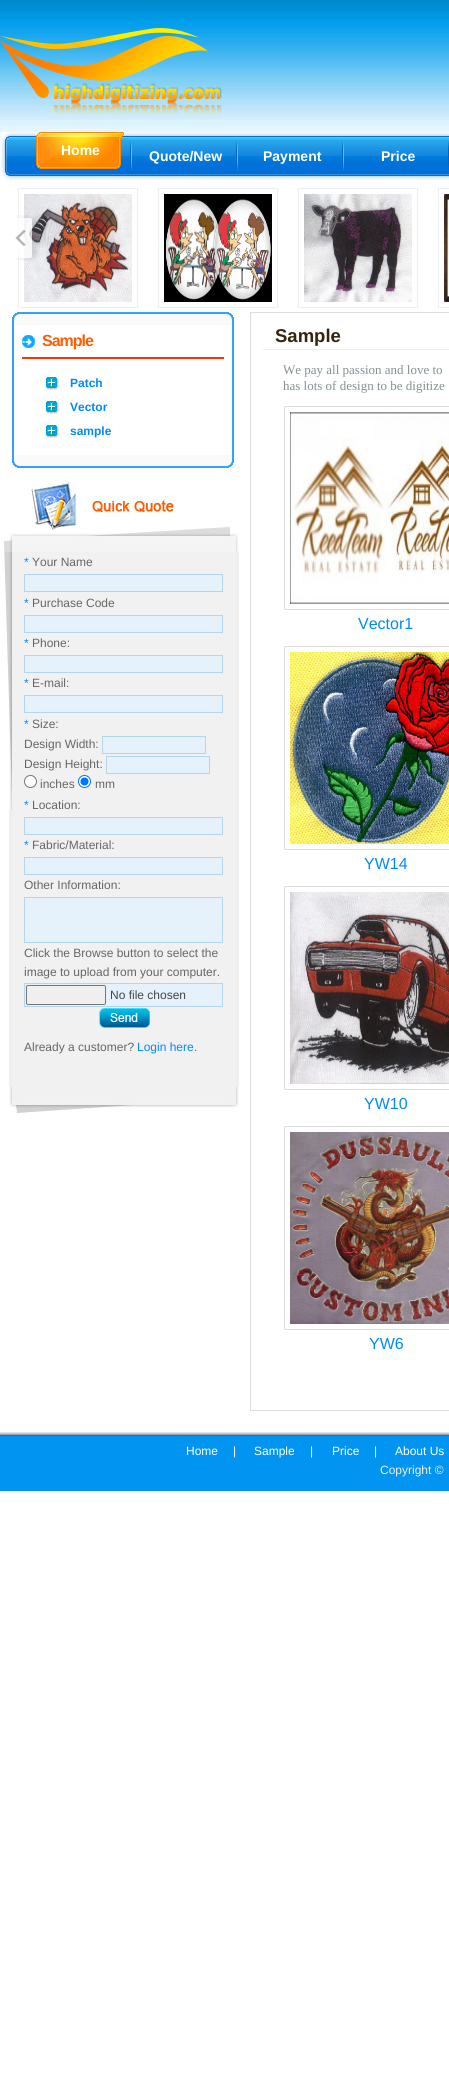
import math
import cairo

surface = cairo.ImageSurface(cairo.Format.RGB24, 449, 2073)
ctx = cairo.Context(surface)
options = cairo.FontOptions()
options.set_hint_metrics(cairo.HintMetrics.OFF)
options.set_hint_style(cairo.HintStyle.NONE)
ctx.set_font_options(options)
ctx.set_miter_limit(4)


def ink(r, g, b):
    ctx.set_source_rgb(r / 255, g / 255, b / 255)


def write(x, y, s, family, size, color, bold=False, italic=False):
    ctx.select_font_face(family, cairo.FontSlant.ITALIC if italic else cairo.FontSlant.NORMAL, cairo.FontWeight.BOLD if bold else cairo.FontWeight.NORMAL)
    ctx.set_font_size(size)
    ink(*color)
    ctx.move_to(x, y)
    ctx.show_text(s)


def write_spaced(x, y, s, letter, word):
    ctx.move_to(x, y)
    for ch in s:
        ctx.show_text(ch)
        ctx.rel_move_to(letter + word * (ch == ' '), 0)


def block(x, y, w, h, *color):
    ink(*color)
    ctx.rectangle(x, y, w, h)
    ctx.fill()


def round_path(x, y, w, h, r):
    ctx.new_sub_path()
    for i, (u, v) in enumerate([(x + w - r, y + h - r), (x + r, y + h - r), (x + r, y + r), (x + w - r, y + r)]):
        ctx.arc(u, v, r, i * math.pi / 2, (i + 1) * math.pi / 2)
    ctx.close_path()


def paste(path, x, y, w, h):
    ctx.save()
    ctx.set_source_surface(cairo.ImageSurface.create_from_png(path), x, y)
    ctx.rectangle(x, y, w, h)
    ctx.fill()
    ctx.restore()


s1 = dict(family="Liberation Sans", size=14, color=(255, 255, 255), bold=True)
s2 = dict(family="Liberation Sans", size=12, color=(0, 138, 255), bold=True)
s3 = dict(family="Liberation Sans", size=12, color=(0, 138, 255))
s4 = dict(family="Liberation Sans", size=12, color=(102, 102, 102))
s5 = dict(family="Liberation Sans", size=12, color=(69, 69, 69))
s6 = dict(family="Liberation Sans", size=18.5, color=(52, 36, 13), bold=True)
s7 = dict(family="Liberation Serif", size=13, color=(132, 145, 148))
s8 = dict(family="Liberation Sans", size=16, color=(0, 138, 255))
s9 = dict(family="Liberation Sans", size=12, color=(255, 255, 255))
s10 = dict(family="Liberation Sans", size=12, color=(238, 238, 238))

ink(255, 255, 255)
ctx.paint()
paste("pic1.png", 0, 0, 449, 178)
paste("pic2.png", 0, 28, 222, 88)
paste("pic3.png", 10, 132, 439, 48)
paste("pic4.png", 1, 132, 9, 48)
paste("pic5.png", 130, 141, 2, 30)
paste("pic6.png", 36, 132, 88, 37)
write(61, 155, "Home", **s1)
paste("pic5.png", 236, 141, 2, 30)
write(149, 161, "Quote/New", **s1)
paste("pic5.png", 342, 141, 2, 30)
write(263, 161, "Payment", **s1)
paste("pic7.png", 448, 141, 1, 29)
write(381, 161, "Price", **s1)
ctx.rectangle(18.5, 188.5, 119, 119)
ink(238, 238, 238)
ctx.set_line_width(1)
ctx.stroke()
paste("pic8.png", 24, 194, 108, 108)
ctx.rectangle(158.5, 188.5, 119, 119)
ctx.stroke()
paste("pic9.png", 164, 194, 108, 108)
ctx.rectangle(298.5, 188.5, 119, 119)
ctx.stroke()
paste("pic10.png", 304, 194, 108, 108)
ctx.rectangle(438.5, 188.5, 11, 119)
ctx.stroke()
paste("pic11.png", 444, 194, 5, 108)
paste("pic12.png", 15, 215, 25, 46)
paste("pic13.png", 12, 312, 222, 13)
block(232, 325, 2, 130, 51, 161, 255)
block(12, 325, 2, 130, 51, 161, 255)
paste("pic14.png", 22, 335, 13, 13)
block(22, 357, 202, 2, 255, 51, 0)
ctx.set_font_size(16)
ink(254, 93, 0)
write_spaced(42, 346, "Sample", -1, 0)
paste("pic15.png", 46, 377, 13, 13)
write(70, 387, "Patch", **s2)
paste("pic15.png", 46, 401, 13, 13)
write(70, 411, "Vector", **s2)
paste("pic15.png", 46, 425, 13, 13)
write(70, 435, "sample", **s2)
paste("pic16.png", 12, 455, 222, 13)
paste("pic17.png", 4, 482, 235, 70)
paste("pic18.png", 4, 552, 8, 258)
block(9, 810, 3, 277, 238, 238, 238)
block(12, 552, 224, 535, 241, 241, 241)
write(24, 566, "*", **s3)
write(32, 566, "Your Name", **s4)
ink(229, 242, 252)
ctx.rectangle(24.5, 574.5, 198, 17)
ctx.fill_preserve()
ink(180, 213, 238)
ctx.stroke()
write(24, 607, "*", **s3)
write(32, 607, "Purchase Code", **s4)
ink(229, 242, 252)
ctx.rectangle(24.5, 615.5, 198, 17)
ctx.fill_preserve()
ink(180, 213, 238)
ctx.stroke()
write(24, 647, "*", **s3)
write(32, 647, "Phone:", **s4)
ink(229, 242, 252)
ctx.rectangle(24.5, 655.5, 198, 17)
ctx.fill_preserve()
ink(180, 213, 238)
ctx.stroke()
write(24, 687, "*", **s3)
write(32, 687, "E-mail:", **s4)
ink(229, 242, 252)
ctx.rectangle(24.5, 695.5, 198, 17)
ctx.fill_preserve()
ink(180, 213, 238)
ctx.stroke()
write(24, 728, "*", **s3)
write(32, 728, "Size:", **s4)
write(24, 748, "Design Width:", **s4)
ink(229, 242, 252)
ctx.rectangle(102.5, 736.5, 103, 17)
ctx.fill_preserve()
ink(180, 213, 238)
ctx.stroke()
write(24, 768, "Design Height:", **s4)
ink(229, 242, 252)
ctx.rectangle(106.5, 756.5, 103, 17)
ctx.fill_preserve()
ink(180, 213, 238)
ctx.stroke()
ink(255, 255, 255)
ctx.arc(30.5, 781.5, 6, 0, 2 * math.pi)
ctx.fill_preserve()
ink(118, 118, 118)
ctx.stroke()
write(40, 788, "inches", **s4)
ink(255, 255, 255)
ctx.new_path()
ctx.arc(84.5, 781.5, 6, 0, 2 * math.pi)
ctx.fill_preserve()
ink(0, 117, 255)
ctx.stroke()
ctx.arc(84.5, 781.5, 4, 0, 2 * math.pi)
ctx.fill()
write(95, 788, "mm", **s4)
write(24, 809, "*", **s3)
write(32, 809, "Location:", **s4)
ink(229, 242, 252)
ctx.rectangle(24.5, 817.5, 198, 17)
ctx.fill_preserve()
ink(180, 213, 238)
ctx.stroke()
write(24, 849, "*", **s3)
write(32, 849, "Fabric/Material:", **s4)
ink(229, 242, 252)
ctx.rectangle(24.5, 857.5, 198, 17)
ctx.fill_preserve()
ink(180, 213, 238)
ctx.stroke()
write(24, 889, "Other Information:", **s4)
ink(229, 242, 252)
ctx.rectangle(24.5, 897.5, 198, 45)
ctx.fill_preserve()
ink(180, 213, 238)
ctx.stroke()
write(24, 957, "Click the Browse button to select the", **s4)
write(24, 976, "image to upload from your computer.", **s4)
ink(229, 242, 252)
ctx.rectangle(24.5, 983.5, 198, 23)
ctx.fill_preserve()
ink(180, 213, 238)
ctx.stroke()
ink(239, 239, 239)
round_path(26.5, 985.5, 79, 19, 1.5)
ctx.fill_preserve()
ink(118, 118, 118)
ctx.stroke()
write(110, 999, "No file chosen", **s5)
paste("pic19.png", 99, 1008, 51, 20)
write(24, 1051, "Already a customer?", **s4)
write(137, 1051, "Login here", **s3)
write(194, 1051, ".", **s4)
block(236, 552, 3, 535, 238, 238, 238)
paste("pic20.png", 9, 1087, 230, 27)
ctx.rectangle(250.5, 312.5, 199, 1098)
ink(221, 221, 221)
ctx.stroke()
block(263, 349, 186, 1, 238, 238, 238)
write(275, 342, "Sample", **s6)
write(283, 374, "We pay all passion and love to", **s7)
write(283, 390, "has lots of design to be digitize", **s7)
ctx.rectangle(284.5, 406.5, 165, 203)
ink(221, 221, 221)
ctx.stroke()
paste("pic21.png", 290, 412, 159, 192)
write(358, 629, "Vector1", **s8)
ctx.rectangle(284.5, 646.5, 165, 203)
ink(221, 221, 221)
ctx.stroke()
paste("pic22.png", 290, 652, 159, 192)
write(364, 869, "YW14", **s8)
ctx.rectangle(284.5, 886.5, 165, 203)
ink(221, 221, 221)
ctx.stroke()
paste("pic23.png", 290, 892, 159, 192)
write(364, 1109, "YW10", **s8)
ctx.rectangle(284.5, 1126.5, 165, 203)
ink(221, 221, 221)
ctx.stroke()
paste("pic24.png", 290, 1132, 159, 192)
write(369, 1349, "YW6", **s8)
block(0, 1436, 449, 55, 2, 148, 241)
paste("pic25.png", 0, 1432, 449, 4)
write(186, 1455, "Home", **s9)
write(233, 1455, "|", **s9)
write(254, 1455, "Sample", **s9)
write(310, 1455, "|", **s9)
write(332, 1455, "Price", **s9)
write(374, 1455, "|", **s9)
write(395, 1455, "About Us", **s9)
write(380, 1474, "Copyright ©", **s10)
surface.write_to_png("screenshot.png")
